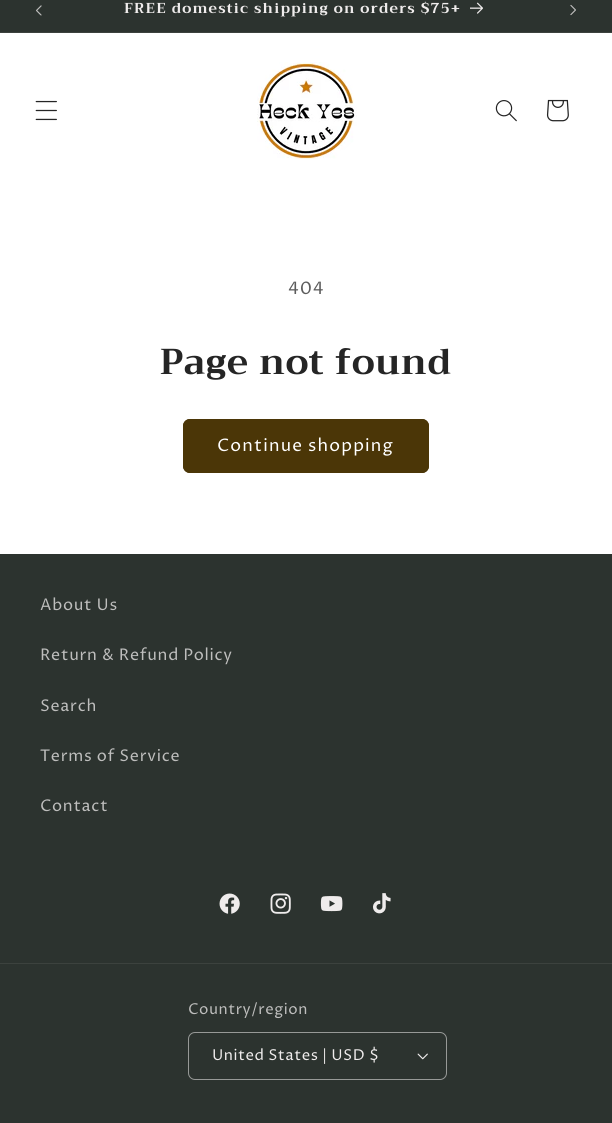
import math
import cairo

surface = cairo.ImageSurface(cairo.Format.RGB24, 612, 1123)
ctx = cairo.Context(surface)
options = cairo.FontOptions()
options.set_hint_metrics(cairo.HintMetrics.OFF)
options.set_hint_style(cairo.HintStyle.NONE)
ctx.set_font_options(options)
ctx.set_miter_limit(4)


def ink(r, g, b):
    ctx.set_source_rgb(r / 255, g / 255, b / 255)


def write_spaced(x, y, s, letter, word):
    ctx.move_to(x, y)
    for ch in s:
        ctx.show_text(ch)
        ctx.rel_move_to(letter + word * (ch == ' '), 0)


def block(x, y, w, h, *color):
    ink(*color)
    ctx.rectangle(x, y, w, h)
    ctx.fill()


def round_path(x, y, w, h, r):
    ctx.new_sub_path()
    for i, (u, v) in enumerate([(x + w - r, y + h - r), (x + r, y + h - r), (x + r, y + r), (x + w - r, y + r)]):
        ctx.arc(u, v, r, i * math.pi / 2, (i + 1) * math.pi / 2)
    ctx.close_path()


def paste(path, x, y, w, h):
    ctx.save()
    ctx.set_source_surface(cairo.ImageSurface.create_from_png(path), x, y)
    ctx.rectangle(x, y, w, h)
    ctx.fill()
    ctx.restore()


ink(255, 255, 255)
ctx.paint()
block(0, 0, 612, 32, 44, 51, 47)
block(0, 32, 612, 1, 60, 66, 62)
paste("pic1.png", 36, 5, 6, 11)
ctx.select_font_face("Trirong", cairo.FontSlant.NORMAL, cairo.FontWeight.BOLD)
ctx.set_font_size(14.4)
ink(239, 236, 236)
write_spaced(124, 13, "FREE domestic shipping on orders $75+", 1.15, 0)
paste("pic2.png", 470, 2, 13, 12)
paste("pic3.png", 570, 4, 6, 12)
paste("pic4.png", 35, 100, 22, 21)
paste("pic5.png", 257, 62, 100, 97)
paste("pic6.png", 495, 100, 22, 22)
paste("pic7.png", 546, 99, 23, 23)
ctx.select_font_face("Proza Libre")
ctx.set_font_size(17.25)
ink(92, 92, 92)
write_spaced(288, 294, "404", 0.7, 0)
ctx.select_font_face("Trirong", cairo.FontSlant.NORMAL, cairo.FontWeight.BOLD)
ctx.set_font_size(36)
ink(37, 37, 37)
write_spaced(160, 374, "Page not found", 0.75, 0)
ink(75, 54, 7)
round_path(183, 419, 246, 54, 7)
ctx.fill()
round_path(183.5, 419.5, 245, 53, 6.5)
ctx.set_line_width(1)
ctx.stroke()
ctx.select_font_face("Proza Libre")
ctx.set_font_size(17.25)
ink(255, 255, 255)
write_spaced(217, 451, "Continue shopping", 1.15, 0)
block(0, 554, 612, 569, 44, 51, 47)
ctx.set_font_size(16.1)
ink(190, 190, 189)
write_spaced(40, 610, "About Us", 0.7, 0)
write_spaced(40, 660, "Return & Refund Policy", 0.7, 0)
write_spaced(40, 711, "Search", 0.7, 0)
write_spaced(40, 761, "Terms of Service", 0.7, 0)
write_spaced(40, 811, "Contact", 0.7, 0)
paste("pic8.png", 219, 893, 21, 21)
paste("pic9.png", 270, 893, 21, 21)
paste("pic10.png", 320, 896, 23, 16)
paste("pic11.png", 373, 893, 18, 21)
block(0, 963, 612, 1, 60, 66, 62)
ctx.set_font_size(15)
ink(190, 190, 189)
write_spaced(188, 1014, "Country/region", 0.5, 0)
paste("pic12.png", 417, 1053, 11, 7)
round_path(188.5, 1032.5, 258, 47, 6.5)
ink(151, 153, 151)
ctx.stroke()
ink(239, 236, 236)
write_spaced(212, 1060, "United States | USD $", 0.5, 0)
surface.write_to_png("screenshot.png")
